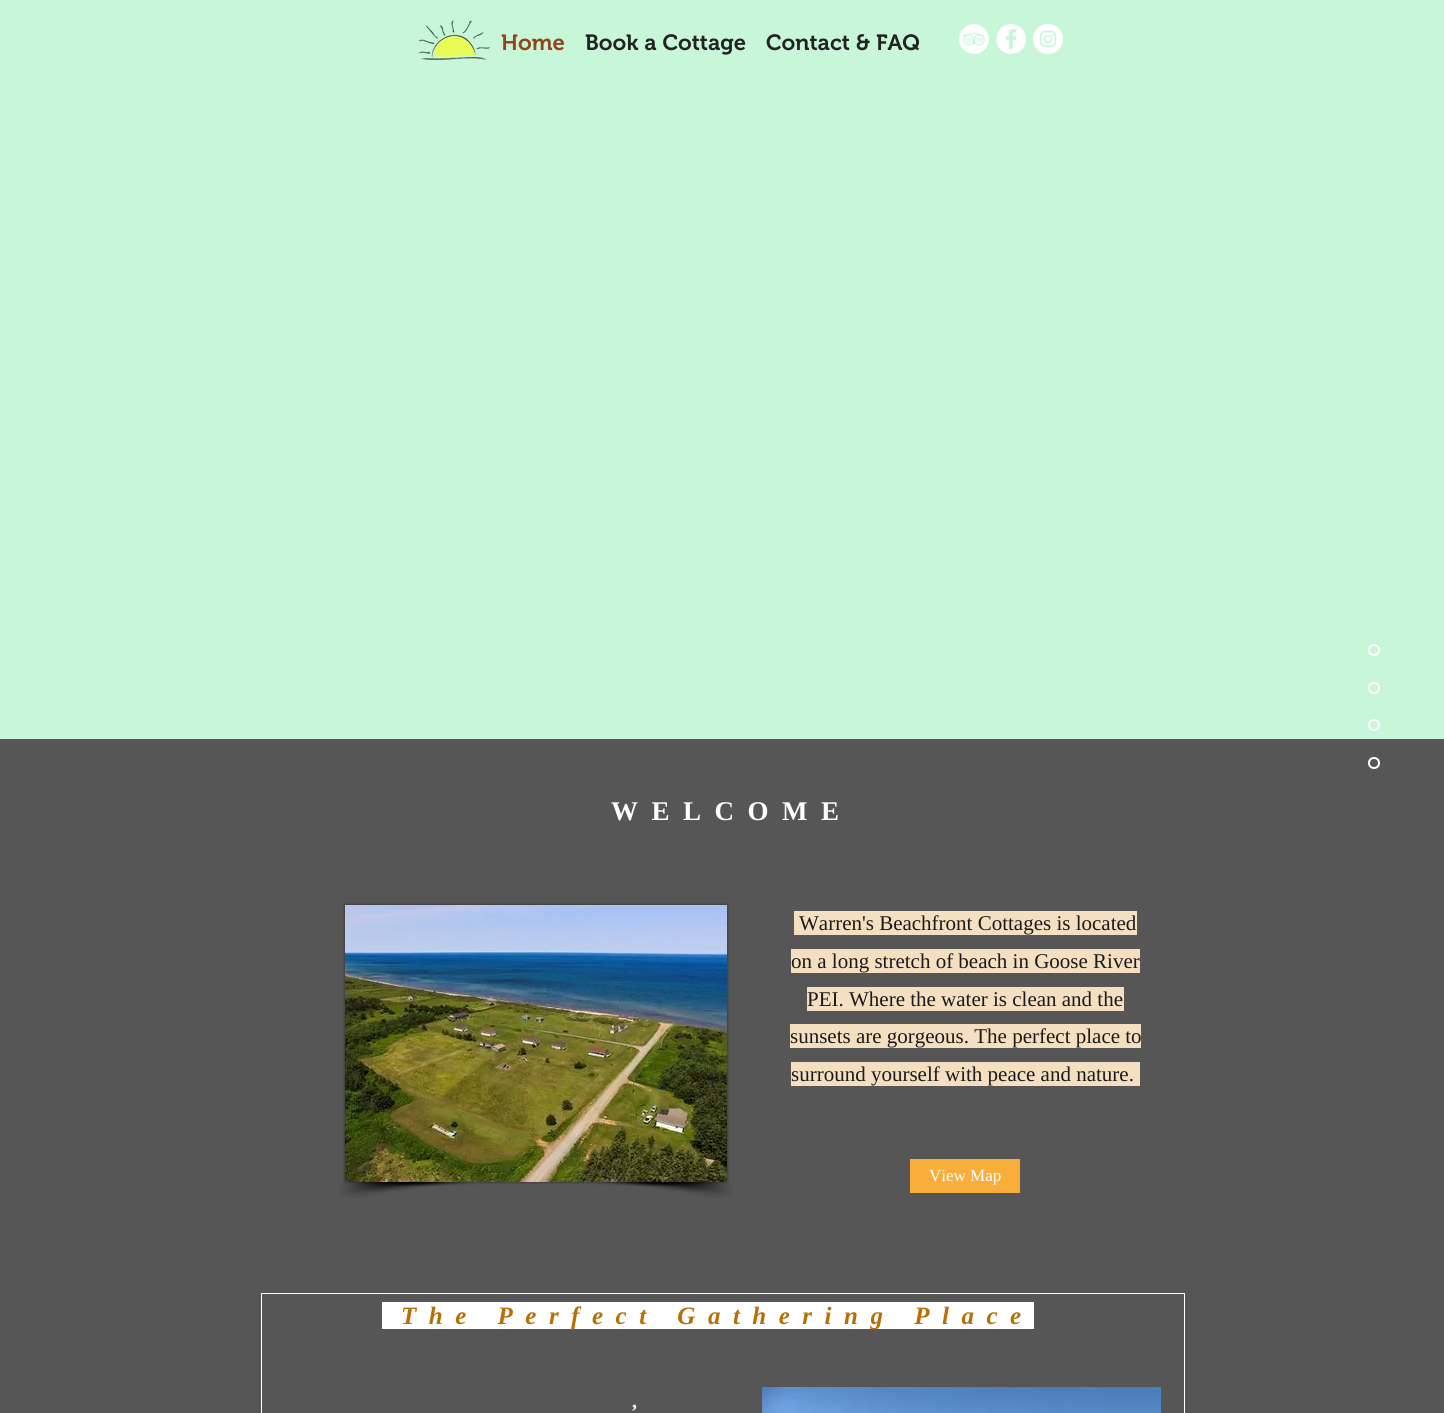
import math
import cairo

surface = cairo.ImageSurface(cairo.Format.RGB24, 1444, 1413)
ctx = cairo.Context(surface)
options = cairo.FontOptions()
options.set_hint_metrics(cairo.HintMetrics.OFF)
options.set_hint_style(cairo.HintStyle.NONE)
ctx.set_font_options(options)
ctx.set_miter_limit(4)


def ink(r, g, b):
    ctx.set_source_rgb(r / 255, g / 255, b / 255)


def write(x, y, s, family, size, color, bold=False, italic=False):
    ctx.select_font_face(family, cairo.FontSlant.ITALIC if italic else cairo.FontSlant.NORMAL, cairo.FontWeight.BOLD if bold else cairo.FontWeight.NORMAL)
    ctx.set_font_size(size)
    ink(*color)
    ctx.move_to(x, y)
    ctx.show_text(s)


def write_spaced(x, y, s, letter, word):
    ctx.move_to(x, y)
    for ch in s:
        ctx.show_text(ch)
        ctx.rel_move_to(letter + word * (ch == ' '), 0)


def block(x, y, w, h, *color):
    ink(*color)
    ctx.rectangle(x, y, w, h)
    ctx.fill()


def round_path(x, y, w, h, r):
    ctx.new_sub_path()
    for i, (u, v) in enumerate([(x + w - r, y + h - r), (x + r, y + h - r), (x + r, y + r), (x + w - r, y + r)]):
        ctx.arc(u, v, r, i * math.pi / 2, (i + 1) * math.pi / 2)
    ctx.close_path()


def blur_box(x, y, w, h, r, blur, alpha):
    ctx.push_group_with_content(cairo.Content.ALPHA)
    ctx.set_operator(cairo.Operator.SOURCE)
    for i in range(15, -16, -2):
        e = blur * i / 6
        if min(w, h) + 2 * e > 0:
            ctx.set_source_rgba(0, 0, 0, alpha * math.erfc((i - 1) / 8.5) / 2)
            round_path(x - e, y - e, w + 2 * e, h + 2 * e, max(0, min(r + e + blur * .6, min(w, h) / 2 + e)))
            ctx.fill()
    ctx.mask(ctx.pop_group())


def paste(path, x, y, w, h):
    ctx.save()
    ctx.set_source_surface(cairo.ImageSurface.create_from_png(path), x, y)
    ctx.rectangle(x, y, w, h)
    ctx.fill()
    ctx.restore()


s1 = dict(family="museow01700 SemiBold", size=22, color=(147, 68, 26))
s2 = dict(family="museow01700 SemiBold", size=22, color=(35, 35, 35))
s3 = dict(family="Liberation Serif", size=21, color=(26, 26, 26))
s4 = dict(family="Liberation Serif", size=17, color=(255, 255, 255))
s5 = dict(family="Liberation Serif", size=20, color=(255, 255, 255), bold=True)

ink(199, 247, 216)
ctx.paint()
paste("pic1.png", 418, 20, 73, 40)
write(501, 50, "Home", **s1)
write(585, 50, "Book a Cottage", **s2)
write(766, 50, "Contact & FAQ", **s2)
paste("pic2.png", 959, 24, 30, 30)
paste("pic3.png", 996, 24, 30, 30)
paste("pic4.png", 1033, 24, 30, 30)
ctx.arc(1374, 650, 5, 0, 2 * math.pi)
ink(255, 255, 255)
ctx.stroke()
ctx.arc(1374, 688, 5, 0, 2 * math.pi)
ctx.stroke()
ctx.arc(1374, 725, 5, 0, 2 * math.pi)
ctx.stroke()
block(0, 739, 1444, 674, 86, 86, 86)
ctx.arc(1374, 763, 5, 0, 2 * math.pi)
ink(255, 255, 255)
ctx.stroke()
ctx.select_font_face("Liberation Serif", cairo.FontSlant.NORMAL, cairo.FontWeight.BOLD)
ctx.set_font_size(27)
write_spaced(611, 820, "WELCOME", 13.5, 0)
ink(0, 0, 0)
blur_box(345, 905, 382, 277, 0, 1.5, 0.5)
paste("pic5.png", 345, 905, 382, 277)
paste("pic6.png", 340, 1182, 135, 16)
paste("pic7.png", 597, 1182, 135, 16)
block(794, 911, 343, 24, 244, 223, 192)
write(799, 930, "Warren's Beachfront Cottages is located", **s3)
block(791, 949, 349, 24, 244, 223, 192)
write(791, 968, "on a long stretch of beach in Goose River", **s3)
block(807, 987, 317, 24, 244, 223, 192)
write(807, 1006, "PEI. Where the water is clean and the", **s3)
block(790, 1024, 351, 24, 244, 223, 192)
write(790, 1043, "sunsets are gorgeous. The perfect place to", **s3)
block(791, 1062, 349, 24, 244, 223, 192)
write(791, 1081, "surround yourself with peace and nature.", **s3)
block(910, 1159, 110, 34, 249, 173, 59)
write(929, 1181, "View Map", **s4)
ctx.rectangle(261.5, 1293.5, 923, 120)
ctx.set_line_width(1)
ctx.stroke()
block(382, 1302, 652, 27, 255, 255, 255)
ctx.select_font_face("Liberation Serif", cairo.FontSlant.ITALIC, cairo.FontWeight.BOLD)
ctx.set_font_size(25)
ink(183, 112, 6)
write_spaced(401, 1324, "The Perfect Gathering Place", 12.5, 0)
write(631, 1418, "’", **s5)
paste("pic8.png", 762, 1387, 399, 26)
surface.write_to_png("screenshot.png")
